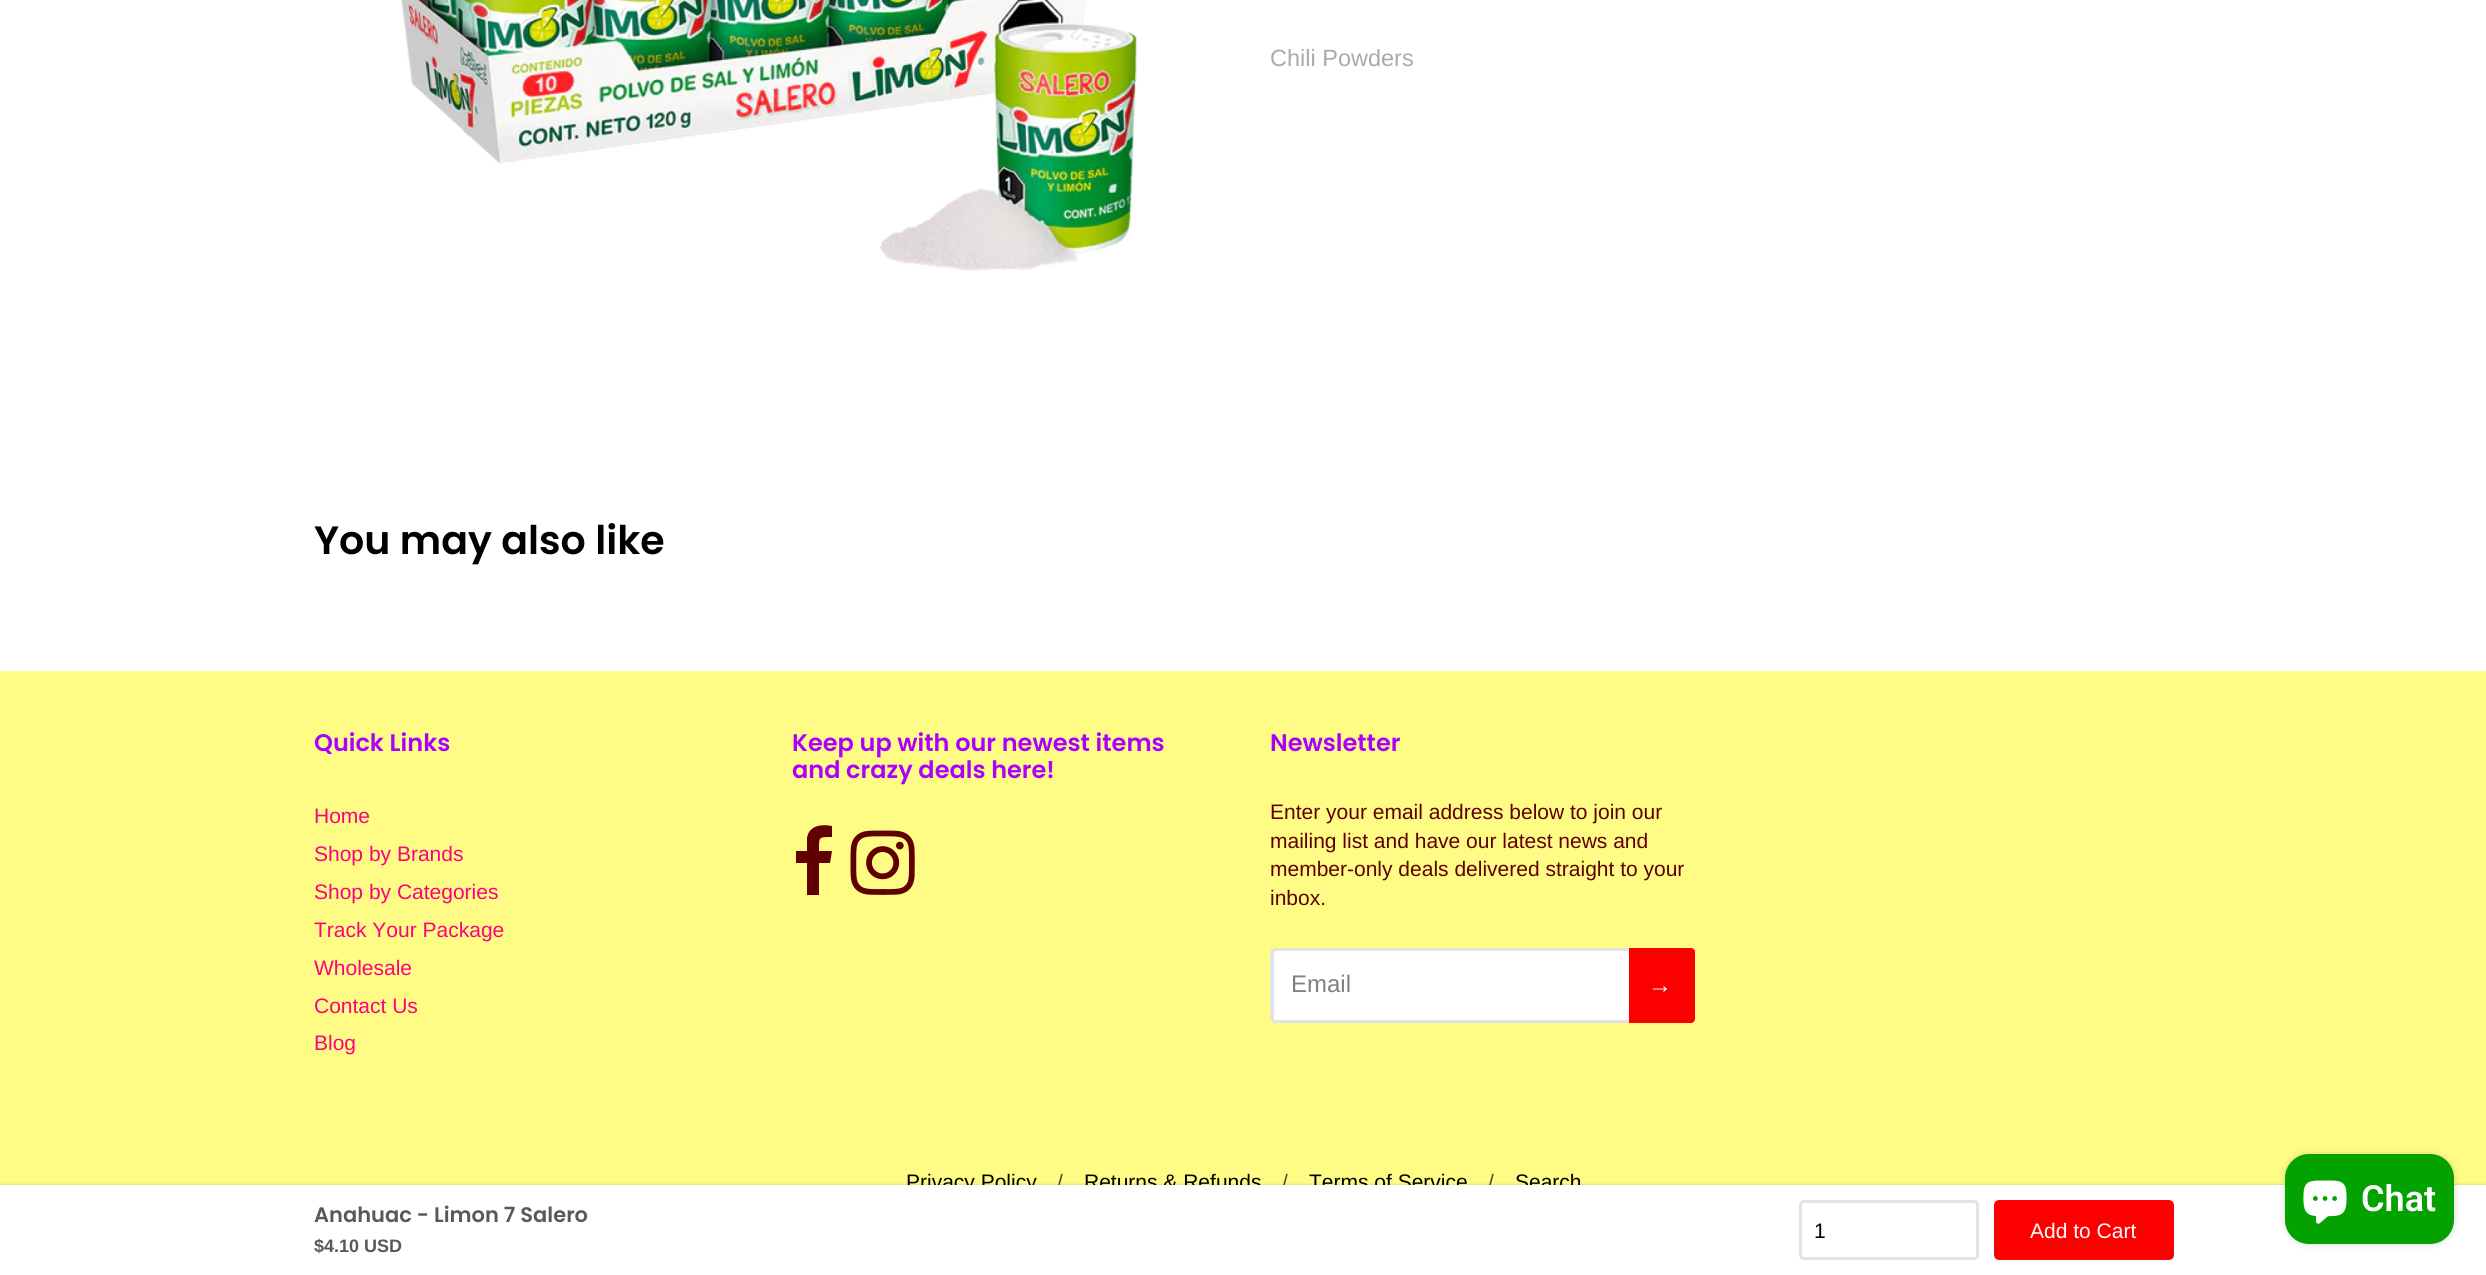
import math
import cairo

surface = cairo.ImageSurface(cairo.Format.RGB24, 2486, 1275)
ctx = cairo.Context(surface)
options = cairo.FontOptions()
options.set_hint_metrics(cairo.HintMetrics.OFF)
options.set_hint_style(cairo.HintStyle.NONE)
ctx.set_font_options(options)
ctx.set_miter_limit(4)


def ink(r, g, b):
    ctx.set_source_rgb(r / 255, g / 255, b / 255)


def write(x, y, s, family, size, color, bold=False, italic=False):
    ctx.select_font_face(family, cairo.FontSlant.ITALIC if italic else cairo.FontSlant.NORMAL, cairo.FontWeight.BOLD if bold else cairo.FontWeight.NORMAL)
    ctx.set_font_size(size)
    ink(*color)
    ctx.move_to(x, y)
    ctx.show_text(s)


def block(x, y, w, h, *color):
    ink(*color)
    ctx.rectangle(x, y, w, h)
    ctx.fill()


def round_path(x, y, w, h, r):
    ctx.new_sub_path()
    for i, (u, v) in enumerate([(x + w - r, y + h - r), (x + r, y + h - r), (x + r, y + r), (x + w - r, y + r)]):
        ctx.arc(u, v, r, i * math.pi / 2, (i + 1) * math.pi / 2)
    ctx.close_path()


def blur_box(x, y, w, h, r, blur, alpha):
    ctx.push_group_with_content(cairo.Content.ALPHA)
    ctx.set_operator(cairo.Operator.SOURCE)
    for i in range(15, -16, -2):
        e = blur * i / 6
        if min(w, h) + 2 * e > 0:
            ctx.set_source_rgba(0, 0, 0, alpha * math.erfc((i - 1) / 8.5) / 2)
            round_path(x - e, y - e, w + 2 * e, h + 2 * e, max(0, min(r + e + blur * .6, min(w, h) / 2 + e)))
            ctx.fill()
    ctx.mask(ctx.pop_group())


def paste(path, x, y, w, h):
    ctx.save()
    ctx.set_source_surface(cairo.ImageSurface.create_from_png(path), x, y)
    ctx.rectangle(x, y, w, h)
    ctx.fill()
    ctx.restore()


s1 = dict(family="Liberation Sans", size=23.5, color=(174, 168, 168))
s2 = dict(family="Liberation Sans", size=21, color=(0, 0, 0))
s3 = dict(family="Liberation Sans", size=21, color=(77, 76, 40))
s4 = dict(family="Poppins SemiBold", size=21, color=(95, 87, 85))
s5 = dict(family="Liberation Sans", size=18, color=(95, 87, 85), bold=True)
s6 = dict(family="Liberation Sans", size=21, color=(255, 255, 255))
s7 = dict(family="Poppins SemiBold", size=39.5, color=(0, 0, 0))
s8 = dict(family="Poppins SemiBold", size=24, color=(172, 0, 255))
s9 = dict(family="Liberation Sans", size=21, color=(255, 0, 129))
s10 = dict(family="Liberation Sans", size=21, color=(96, 0, 0))
s11 = dict(family="Liberation Sans", size=24, color=(128, 128, 128))
s12 = dict(family="Liberation Sans", size=24, color=(255, 255, 255))
s13 = dict(family="Roboto SemiBold", size=36, color=(255, 255, 255))

ink(255, 255, 255)
ctx.paint()
paste("pic1.png", 401, 0, 736, 271)
write(1270, 66, "Chili Powders", **s1)
block(0, 671, 2486, 514, 255, 252, 134)
ink(0, 0, 0)
blur_box(0, 1185, 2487, 90, 0, 1.5, 0.2)
write(906, 1189, "Privacy Policy", **s2)
write(1057, 1189, "/", **s3)
write(1084, 1189, "Returns & Refunds", **s2)
write(1282, 1189, "/", **s3)
write(1309, 1189, "Terms of Service", **s2)
write(1488, 1189, "/", **s3)
write(1515, 1189, "Search", **s2)
block(0, 1185, 2486, 90, 255, 255, 255)
write(314, 1222, "Anahuac - Limon 7 Salero", **s4)
write(314, 1252, "$4.10 USD", **s5)
round_path(1800.5, 1201.5, 177, 57, 3.5)
ink(225, 227, 228)
ctx.set_line_width(3)
ctx.stroke()
write(1814, 1238, "1", **s2)
ink(252, 0, 0)
round_path(1995.5, 1201.5, 177, 57, 3.5)
ctx.fill_preserve()
ctx.stroke()
write(2030, 1238, "Add to Cart", **s6)
write(314, 554, "You may also like", **s7)
write(314, 751, "Quick Links", **s8)
write(314, 823, "Home", **s9)
write(314, 861, "Shop by Brands", **s9)
write(314, 899, "Shop by Categories", **s9)
write(314, 937, "Track Your Package", **s9)
write(314, 975, "Wholesale", **s9)
write(314, 1013, "Contact Us", **s9)
write(314, 1050, "Blog", **s9)
write(792, 751, "Keep up with our newest items", **s8)
write(792, 778, "and crazy deals here!", **s8)
ink(96, 0, 0)
ctx.new_path()
ctx.move_to(832, 826)
ctx.line_to(832, 837)
ctx.curve_to(818, 837, 819, 837, 819, 851)
ctx.line_to(832, 851)
ctx.line_to(830, 863)
ctx.line_to(819, 863)
ctx.line_to(819, 895)
ctx.line_to(807, 895)
ctx.line_to(807, 863)
ctx.line_to(796, 863)
ctx.line_to(796, 851)
ctx.line_to(807, 851)
ctx.line_to(807, 838)
ctx.curve_to(809, 825, 822, 824, 832, 826)
ctx.close_path()
ctx.fill()
paste("pic2.png", 850, 830, 65, 65)
write(1270, 751, "Newsletter", **s8)
write(1270, 819, "Enter your email address below to join our", **s10)
write(1270, 848, "mailing list and have our latest news and", **s10)
write(1270, 876, "member-only deals delivered straight to your", **s10)
write(1270, 905, "inbox.", **s10)
ink(255, 255, 255)
ctx.new_path()
ctx.move_to(1276, 948)
ctx.line_to(1629, 948)
ctx.line_to(1629, 1023)
ctx.line_to(1276, 1023)
ctx.curve_to(1273, 1023, 1271, 1021, 1271, 1018)
ctx.line_to(1271, 953)
ctx.curve_to(1271, 950, 1273, 948, 1276, 948)
ctx.close_path()
ctx.fill()
ink(225, 227, 228)
ctx.set_fill_rule(cairo.FillRule.EVEN_ODD)
ctx.new_path()
ctx.move_to(1275, 948)
ctx.line_to(1629, 948)
ctx.line_to(1629, 1023)
ctx.line_to(1275, 1023)
ctx.curve_to(1273, 1023, 1270, 1021, 1270, 1018)
ctx.line_to(1270, 952)
ctx.curve_to(1270, 950, 1273, 948, 1275, 948)
ctx.close_path()
ctx.move_to(1275, 951)
ctx.line_to(1629, 951)
ctx.line_to(1629, 1020)
ctx.line_to(1275, 1020)
ctx.curve_to(1274, 1020, 1274, 1019, 1274, 1018)
ctx.line_to(1274, 952)
ctx.curve_to(1274, 952, 1274, 951, 1275, 951)
ctx.close_path()
ctx.fill()
write(1291, 992, "Email", **s11)
ink(252, 0, 0)
ctx.new_path()
ctx.move_to(1629, 948)
ctx.line_to(1690, 948)
ctx.curve_to(1693, 948, 1695, 950, 1695, 953)
ctx.line_to(1695, 1018)
ctx.curve_to(1695, 1021, 1693, 1023, 1690, 1023)
ctx.line_to(1629, 1023)
ctx.close_path()
ctx.fill()
ctx.new_path()
ctx.move_to(1629, 948)
ctx.line_to(1690, 948)
ctx.curve_to(1693, 948, 1695, 950, 1695, 952)
ctx.line_to(1695, 1018)
ctx.curve_to(1695, 1021, 1693, 1023, 1690, 1023)
ctx.line_to(1629, 1023)
ctx.close_path()
ctx.move_to(1629, 951)
ctx.line_to(1690, 951)
ctx.curve_to(1691, 951, 1692, 952, 1692, 952)
ctx.line_to(1692, 1018)
ctx.curve_to(1692, 1019, 1691, 1020, 1690, 1020)
ctx.line_to(1629, 1020)
ctx.close_path()
ctx.fill()
write(1648, 993, "→", **s12)
ink(0, 0, 0)
blur_box(2285, 1154, 169, 90, 24, 4, 0.15)
ink(4, 162, 0)
round_path(2285, 1154, 169, 90, 24)
ctx.fill()
paste("pic3.png", 2303, 1180, 44, 44)
write(2361, 1211, "Chat", **s13)
surface.write_to_png("screenshot.png")
